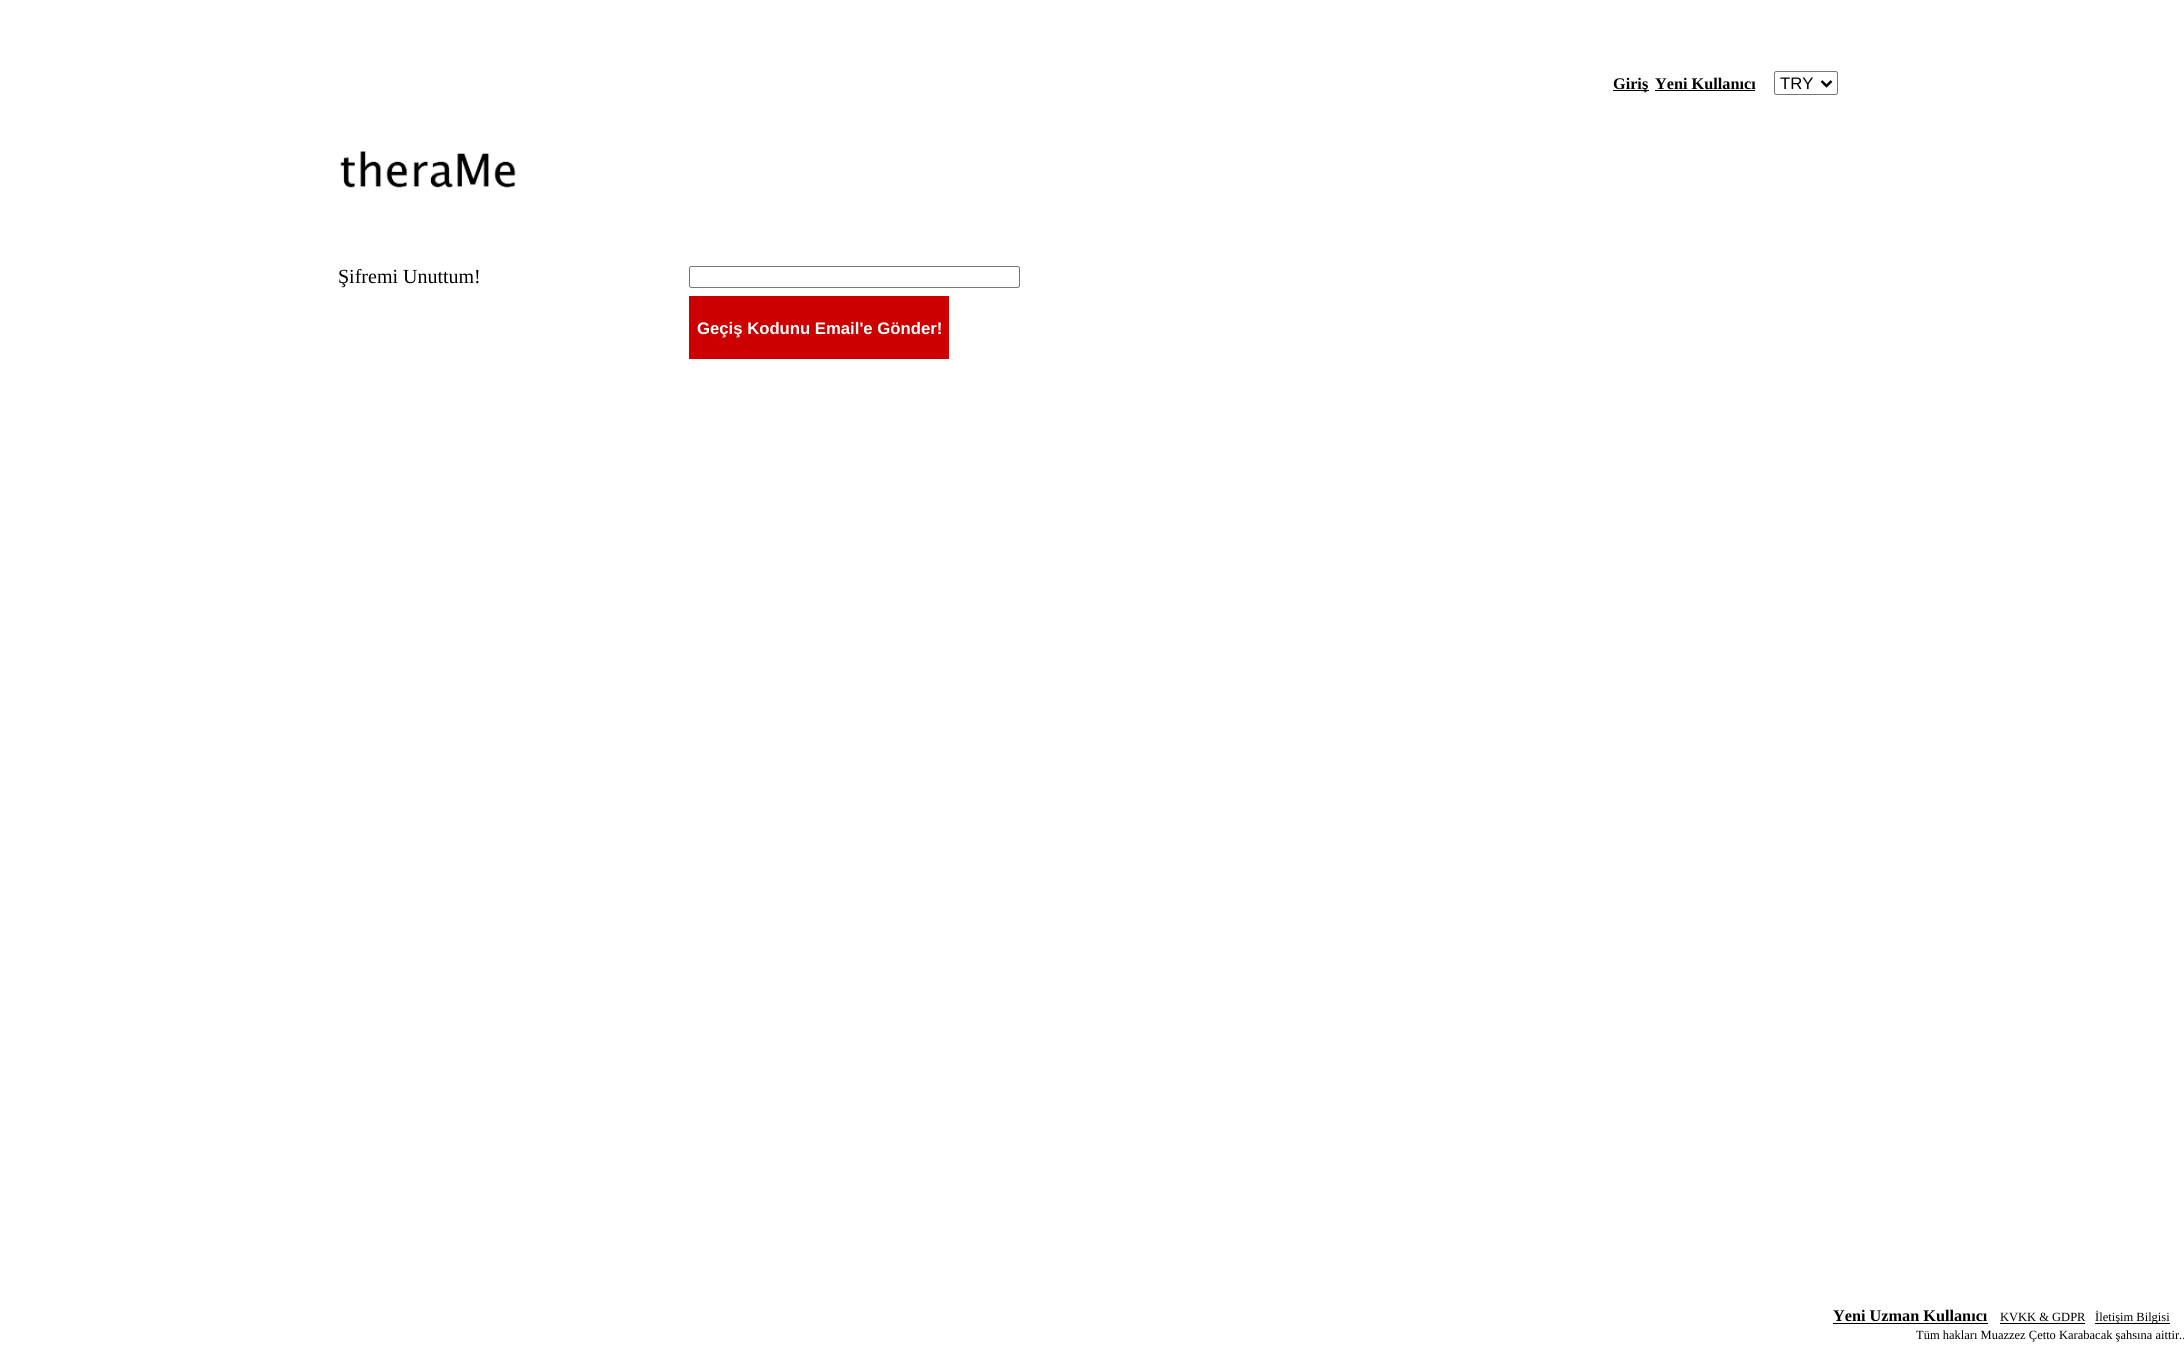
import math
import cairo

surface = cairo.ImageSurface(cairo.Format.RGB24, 2184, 1347)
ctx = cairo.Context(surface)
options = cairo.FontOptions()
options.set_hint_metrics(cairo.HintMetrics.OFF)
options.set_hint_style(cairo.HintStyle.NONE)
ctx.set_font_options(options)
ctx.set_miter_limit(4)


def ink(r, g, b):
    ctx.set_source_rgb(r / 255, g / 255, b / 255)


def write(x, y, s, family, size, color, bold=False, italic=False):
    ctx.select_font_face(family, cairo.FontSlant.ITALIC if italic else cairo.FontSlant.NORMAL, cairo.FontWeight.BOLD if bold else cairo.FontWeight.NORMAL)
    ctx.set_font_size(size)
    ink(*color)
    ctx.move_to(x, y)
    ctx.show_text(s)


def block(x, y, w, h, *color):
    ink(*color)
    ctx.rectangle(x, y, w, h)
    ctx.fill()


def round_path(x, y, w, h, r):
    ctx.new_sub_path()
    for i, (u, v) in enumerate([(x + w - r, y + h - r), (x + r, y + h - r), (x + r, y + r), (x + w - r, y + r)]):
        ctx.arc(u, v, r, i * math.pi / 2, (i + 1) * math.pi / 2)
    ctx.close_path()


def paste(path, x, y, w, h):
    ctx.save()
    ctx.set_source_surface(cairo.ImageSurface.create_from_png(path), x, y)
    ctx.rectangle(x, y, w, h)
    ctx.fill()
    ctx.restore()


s1 = dict(family="Liberation Serif", size=16.25, color=(0, 0, 0), bold=True)
s2 = dict(family="Liberation Sans", size=16.7, color=(0, 0, 0))
s3 = dict(family="Liberation Serif", size=20, color=(0, 0, 0))
s4 = dict(family="Liberation Sans", size=16.7, color=(255, 255, 255), bold=True)
s5 = dict(family="Liberation Serif", size=12.5, color=(0, 0, 0))

ink(255, 255, 255)
ctx.paint()
block(1613, 90, 36, 1, 0, 0, 0)
write(1613, 89, "Giriş", **s1)
write(1655, 89, "Yeni Kullanıcı", **s1)
block(1655, 90, 100, 1, 0, 0, 0)
round_path(1774.5, 71.5, 63, 23, 2)
ink(118, 118, 118)
ctx.set_line_width(1)
ctx.stroke()
ctx.new_path()
ctx.move_to(1821.5, 81)
ctx.line_to(1826.5, 86)
ctx.line_to(1831.5, 81)
ink(0, 0, 0)
ctx.set_line_width(2.5)
ctx.stroke()
write(1780, 89, "TRY", **s2)
paste("pic1.png", 340, 151, 176, 37)
write(338, 283, "Şifremi Unuttum!", **s3)
round_path(689.5, 266.5, 330, 21, 2)
ink(118, 118, 118)
ctx.set_line_width(1)
ctx.stroke()
block(689, 296, 260, 63, 204, 0, 0)
write(697, 334, "Geçiş Kodunu Email'e Gönder!", **s4)
write(1833, 1321, "Yeni Uzman Kullanıcı", **s1)
block(1833, 1323, 155, 1, 0, 0, 0)
write(2000, 1321, "KVKK & GDPR", **s5)
block(2000, 1323, 85, 1, 0, 0, 0)
block(2095, 1323, 75, 1, 0, 0, 0)
write(2095, 1321, "İletişim Bilgisi", **s5)
write(1916, 1339, "Tüm hakları Muazzez Çetto Karabacak şahsına aittir..", **s5)
surface.write_to_png("screenshot.png")
